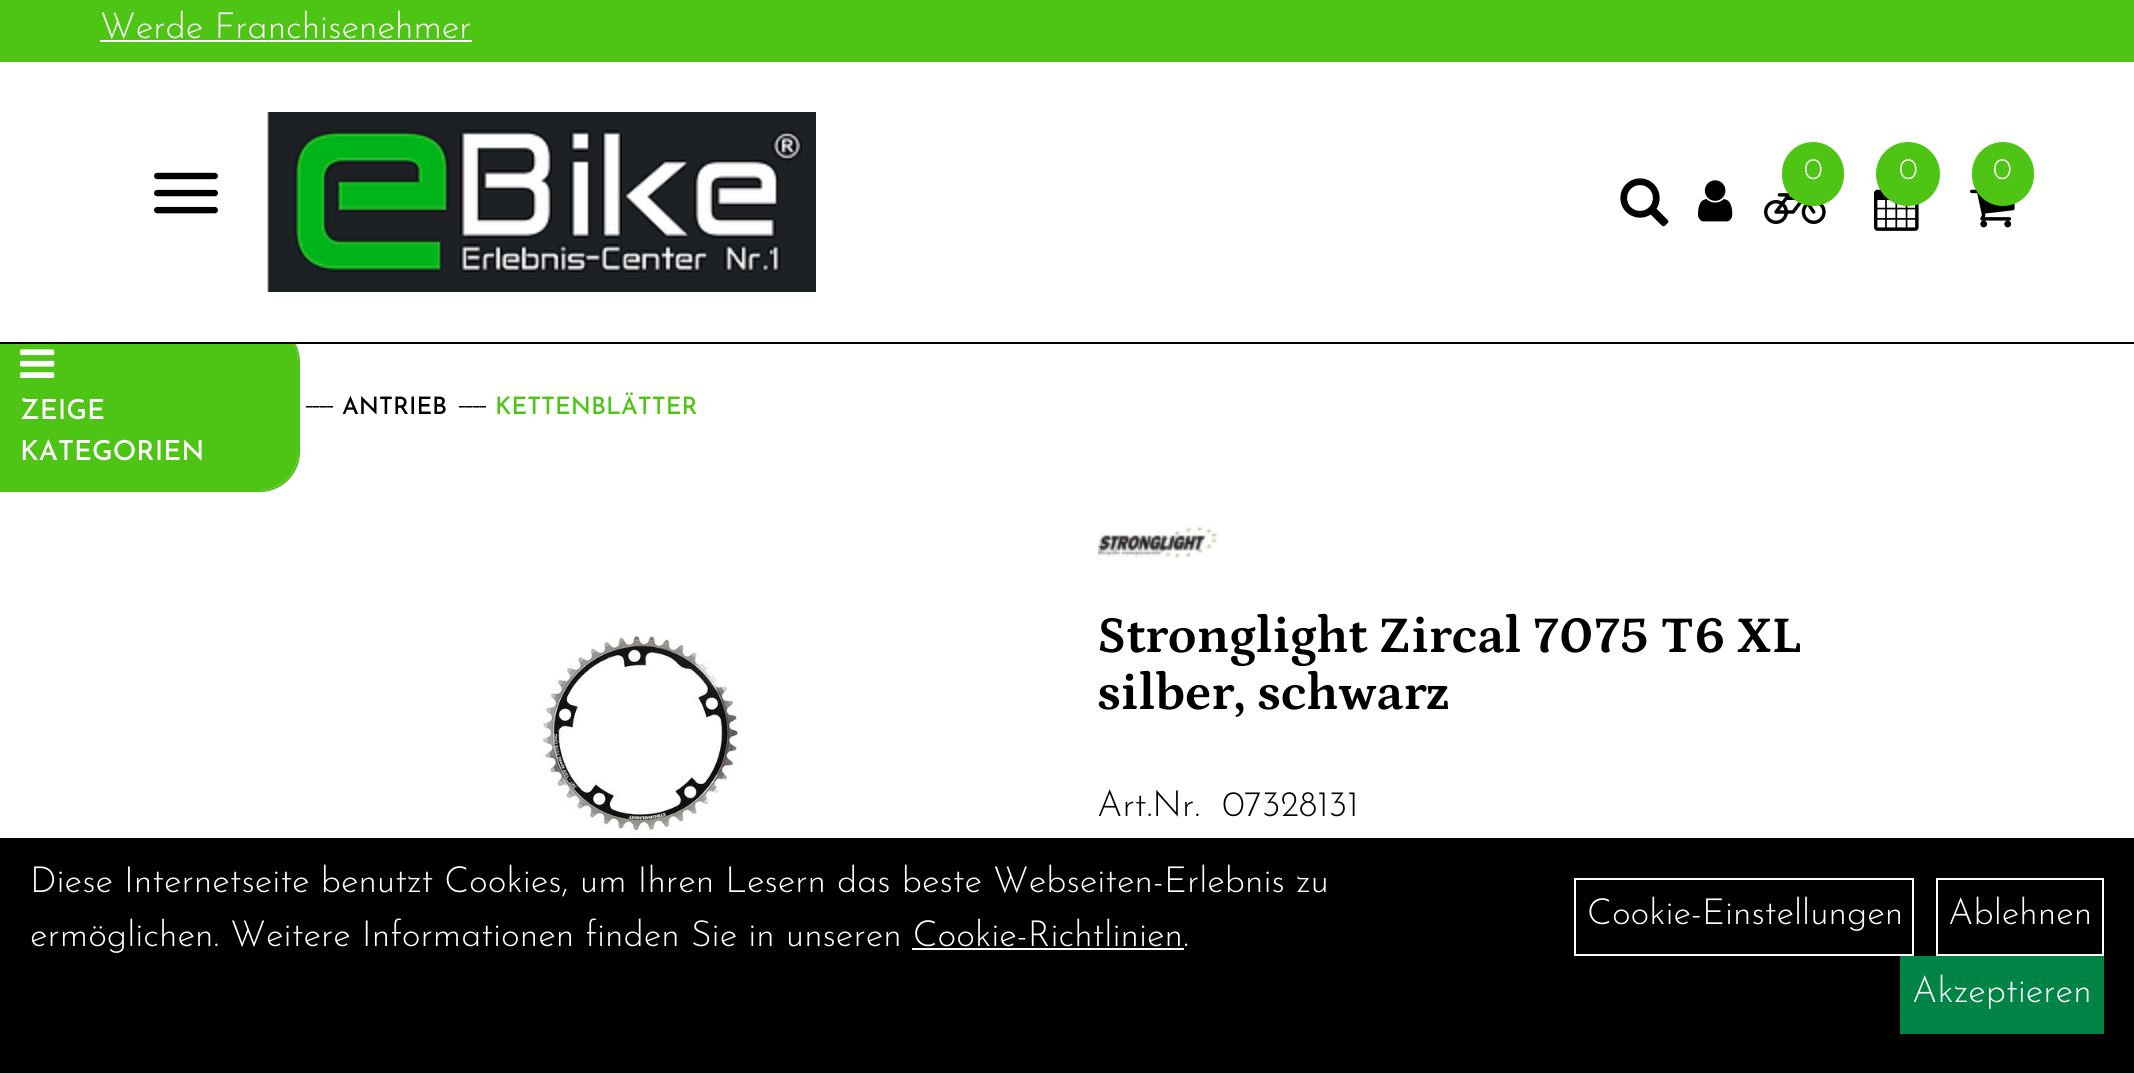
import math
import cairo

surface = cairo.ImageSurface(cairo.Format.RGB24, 2134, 1073)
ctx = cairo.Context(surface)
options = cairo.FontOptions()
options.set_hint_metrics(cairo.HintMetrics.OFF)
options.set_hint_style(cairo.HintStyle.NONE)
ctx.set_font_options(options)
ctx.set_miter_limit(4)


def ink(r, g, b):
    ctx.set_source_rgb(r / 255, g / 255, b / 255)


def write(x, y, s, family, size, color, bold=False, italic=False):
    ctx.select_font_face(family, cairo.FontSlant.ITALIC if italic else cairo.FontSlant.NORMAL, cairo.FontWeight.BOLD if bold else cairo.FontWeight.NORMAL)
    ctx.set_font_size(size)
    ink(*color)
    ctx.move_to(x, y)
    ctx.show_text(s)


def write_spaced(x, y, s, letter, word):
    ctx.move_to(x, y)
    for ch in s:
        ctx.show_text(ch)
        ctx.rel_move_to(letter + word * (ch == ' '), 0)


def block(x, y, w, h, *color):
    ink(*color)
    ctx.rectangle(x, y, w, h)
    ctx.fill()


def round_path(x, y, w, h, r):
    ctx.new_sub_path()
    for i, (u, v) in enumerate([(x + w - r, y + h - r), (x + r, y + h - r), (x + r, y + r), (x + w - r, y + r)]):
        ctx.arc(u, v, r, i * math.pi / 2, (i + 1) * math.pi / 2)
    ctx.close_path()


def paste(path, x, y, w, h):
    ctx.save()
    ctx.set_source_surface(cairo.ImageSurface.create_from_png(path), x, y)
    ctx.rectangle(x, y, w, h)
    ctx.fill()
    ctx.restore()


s1 = dict(family="Josefin Sans Light", size=36, color=(255, 255, 255))
s2 = dict(family="Josefin Sans Light", size=30, color=(255, 255, 255))
s3 = dict(family="Josefin Sans Medium", size=24, color=(0, 0, 0))
s4 = dict(family="Josefin Sans Medium", size=24, color=(78, 196, 20))
s5 = dict(family="Josefin Sans Medium", size=27.5, color=(255, 255, 255))
s6 = dict(family="Petrona", size=52, color=(0, 0, 0), bold=True)
s7 = dict(family="Josefin Sans Light", size=36, color=(0, 0, 0))

ink(255, 255, 255)
ctx.paint()
ink(78, 196, 20)
ctx.set_fill_rule(cairo.FillRule.EVEN_ODD)
ctx.new_path()
ctx.move_to(0, 322)
ctx.line_to(260, 322)
ctx.curve_to(282, 322, 300, 340, 300, 362)
ctx.line_to(300, 452)
ctx.curve_to(300, 474, 282, 492, 260, 492)
ctx.line_to(0, 492)
ctx.close_path()
ctx.move_to(0, 324)
ctx.line_to(260, 324)
ctx.curve_to(281, 324, 298, 341, 298, 362)
ctx.line_to(298, 452)
ctx.curve_to(298, 473, 281, 490, 260, 490)
ctx.line_to(0, 490)
ctx.close_path()
ctx.fill()
ctx.new_path()
ctx.move_to(0, 324)
ctx.line_to(260, 324)
ctx.curve_to(281, 324, 298, 341, 298, 362)
ctx.line_to(298, 452)
ctx.curve_to(298, 473, 281, 490, 260, 490)
ctx.line_to(0, 490)
ctx.close_path()
ctx.fill()
block(0, 342, 2134, 2, 0, 0, 0)
block(0, 0, 2134, 62, 78, 196, 20)
write(100, 38, "Werde Franchisenehmer", **s1)
block(100, 40, 372, 2, 255, 255, 255)
block(0, 322, 295, 20, 255, 255, 255)
paste("pic1.png", 154, 172, 64, 42)
paste("pic2.png", 267, 112, 549, 180)
paste("pic3.png", 1764, 193, 62, 31)
ink(78, 196, 20)
round_path(1782, 142, 62, 64, 31)
ctx.fill()
write(1804, 179, "0", **s2)
paste("pic4.png", 1874, 189, 45, 42)
ink(78, 196, 20)
ctx.arc(1908, 174, 32, 0, 2 * math.pi)
ctx.fill()
write(1899, 179, "0", **s2)
paste("pic5.png", 1970, 189, 45, 39)
ink(78, 196, 20)
round_path(1972, 142, 62, 64, 31)
ctx.fill()
write(1993, 179, "0", **s2)
paste("pic6.png", 1620, 178, 49, 49)
paste("pic7.png", 1698, 180, 35, 42)
ctx.set_font_size(36)
ink(0, 0, 0)
write_spaced(304, 414, "----", -4, 0)
write(342, 414, "ANTRIEB", **s3)
ctx.select_font_face("Josefin Sans Light")
ctx.set_font_size(36)
write_spaced(457, 414, "----", -4, 0)
write(495, 414, "KETTENBLÄTTER", **s4)
paste("pic8.png", 20, 349, 35, 29)
write(20, 419, "ZEIGE", **s5)
write(20, 460, "KATEGORIEN", **s5)
paste("pic9.png", 542, 632, 196, 201)
paste("pic10.png", 1098, 526, 120, 33)
write(1097, 652, "Stronglight Zircal 7075 T6 XL", **s6)
write(1097, 709, "silber, schwarz", **s6)
write(1097, 816, "Art.Nr.  07328131", **s7)
block(0, 838, 2134, 235, 0, 0, 0)
write(30, 892, "Diese Internetseite benutzt Cookies, um Ihren Lesern das beste Webseiten-Erlebnis zu", **s1)
write(30, 946, "ermöglichen. Weitere Informationen finden Sie in unseren Cookie-Richtlinien.", **s1)
block(912, 948, 272, 2, 255, 255, 255)
ctx.rectangle(1575, 879, 338, 76)
ctx.stroke()
write(1587, 924, "Cookie-Einstellungen", **s1)
ctx.rectangle(1937, 879, 166, 76)
ctx.stroke()
write(1948, 924, "Ablehnen", **s1)
block(1900, 956, 204, 78, 0, 132, 70)
write(1912, 1002, "Akzeptieren", **s1)
surface.write_to_png("screenshot.png")
